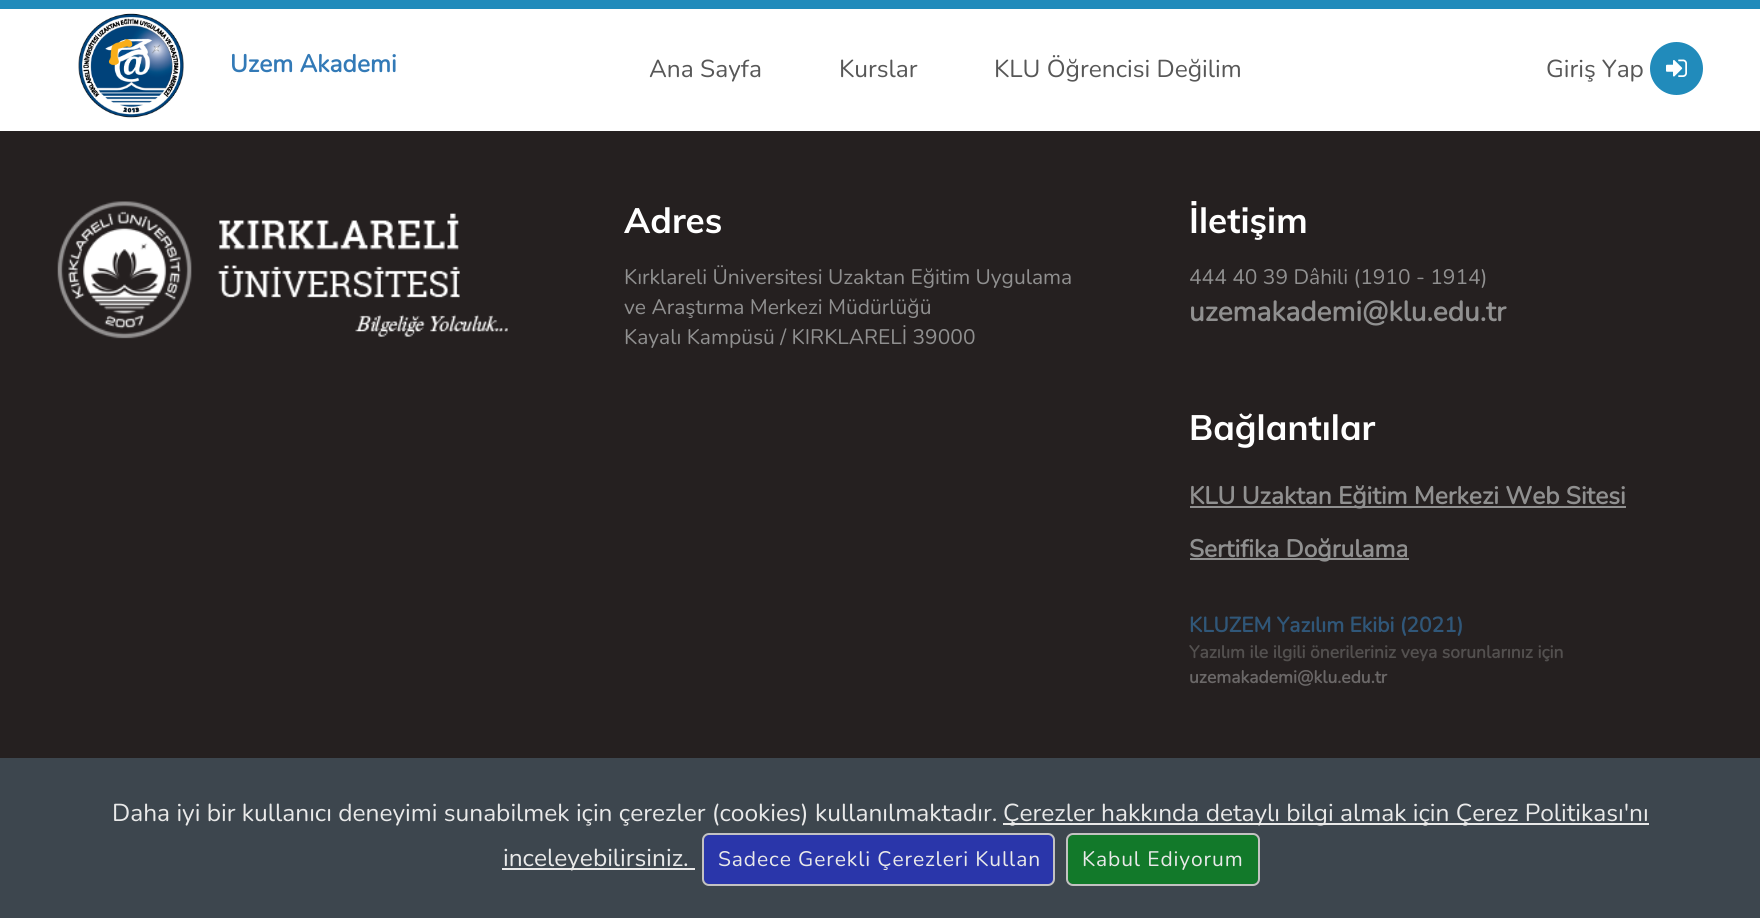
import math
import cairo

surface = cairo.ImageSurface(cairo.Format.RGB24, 1760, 918)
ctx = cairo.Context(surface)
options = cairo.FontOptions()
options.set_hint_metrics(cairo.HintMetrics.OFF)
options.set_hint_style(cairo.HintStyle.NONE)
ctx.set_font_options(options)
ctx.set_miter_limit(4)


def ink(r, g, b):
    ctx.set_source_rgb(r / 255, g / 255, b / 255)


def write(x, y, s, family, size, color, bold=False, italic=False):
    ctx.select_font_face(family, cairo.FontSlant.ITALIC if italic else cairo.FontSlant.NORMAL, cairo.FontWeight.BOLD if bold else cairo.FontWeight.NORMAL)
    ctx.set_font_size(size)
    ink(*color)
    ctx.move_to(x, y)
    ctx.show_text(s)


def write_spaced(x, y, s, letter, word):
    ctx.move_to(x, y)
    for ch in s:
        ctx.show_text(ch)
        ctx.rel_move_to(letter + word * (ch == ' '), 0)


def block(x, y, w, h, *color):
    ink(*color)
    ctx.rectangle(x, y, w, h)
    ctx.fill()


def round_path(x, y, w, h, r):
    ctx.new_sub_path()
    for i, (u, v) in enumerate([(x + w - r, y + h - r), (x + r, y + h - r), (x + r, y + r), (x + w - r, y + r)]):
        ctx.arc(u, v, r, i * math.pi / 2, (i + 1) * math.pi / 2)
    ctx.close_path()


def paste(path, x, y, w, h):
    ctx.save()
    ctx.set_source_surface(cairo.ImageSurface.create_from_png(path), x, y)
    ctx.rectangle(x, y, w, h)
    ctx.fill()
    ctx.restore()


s1 = dict(family="Nunito", size=24.5, color=(51, 122, 183), bold=True)
s2 = dict(family="Nunito ExtraLight", size=24.5, color=(87, 87, 87))
s3 = dict(family="Muli", size=35, color=(255, 255, 255), bold=True)
s4 = dict(family="Nunito ExtraLight", size=21, color=(144, 144, 144))
s5 = dict(family="Nunito", size=28, color=(144, 144, 144), bold=True)
s6 = dict(family="Nunito", size=24.5, color=(144, 144, 144), bold=True)
s7 = dict(family="Nunito", size=21, color=(48, 87, 121), bold=True)
s8 = dict(family="Nunito", size=17.5, color=(83, 80, 79), bold=True)
s9 = dict(family="Nunito", size=17.5, color=(107, 104, 104), bold=True)
s10 = dict(family="Nunito ExtraLight", size=24.5, color=(233, 233, 233))

ink(37, 32, 32)
ctx.paint()
block(0, 9, 1760, 122, 255, 255, 255)
block(0, 0, 1760, 9, 33, 139, 187)
paste("pic1.png", 78, 13, 106, 105)
write(230, 72, "Uzem Akademi", **s1)
write(649, 77, "Ana Sayfa", **s2)
write(839, 77, "Kurslar", **s2)
write(994, 77, "KLU Öğrencisi Değilim", **s2)
write(1546, 77, "Giriş Yap", **s2)
ink(33, 139, 187)
ctx.new_path()
ctx.arc(1676.5, 68.5, 26.5, 0, 2 * math.pi)
ctx.fill()
paste("pic2.png", 1666, 59, 21, 18)
paste("pic3.png", 57, 201, 451, 138)
write(624, 233, "Adres", **s3)
write(624, 284, "Kırklareli Üniversitesi Uzaktan Eğitim Uygulama", **s4)
write(624, 314, "ve Araştırma Merkezi Müdürlüğü", **s4)
write(624, 344, "Kayalı Kampüsü / KIRKLARELİ 39000", **s4)
write(1189, 233, "İletişim", **s3)
write(1189, 284, "444 40 39 Dâhili (1910 - 1914)", **s4)
write(1189, 321, "uzemakademi@klu.edu.tr", **s5)
write(1189, 440, "Bağlantılar", **s3)
block(1190, 506, 436, 2, 144, 144, 144)
write(1189, 504, "KLU Uzaktan Eğitim Merkezi Web Sitesi", **s6)
block(1190, 558, 219, 2, 144, 144, 144)
write(1189, 557, "Sertifika Doğrulama", **s6)
write(1189, 632, "KLUZEM Yazılım Ekibi (2021)", **s7)
write(1189, 658, "Yazılım ile ilgili önerileriniz veya sorunlarınız için", **s8)
write(1189, 683, "uzemakademi@klu.edu.tr", **s9)
block(0, 758, 1760, 160, 61, 70, 78)
write(112, 821, "Daha iyi bir kullanıcı deneyimi sunabilmek için çerezler (cookies) kullanılmaktadır.", **s10)
block(1003, 823, 646, 2, 233, 233, 233)
write(1003, 821, "Çerezler hakkında detaylı bilgi almak için Çerez Politikası'nı", **s10)
block(502, 868, 193, 2, 233, 233, 233)
write(503, 866, "inceleyebilirsiniz.", **s10)
ink(42, 54, 170)
round_path(704, 835, 350, 49, 5)
ctx.fill()
round_path(703, 834, 351, 51, 6)
ink(195, 194, 194)
ctx.stroke()
ctx.set_font_size(21)
ink(233, 233, 233)
write_spaced(718, 866, "Sadece Gerekli Çerezleri Kullan", 0.9, 0)
ink(18, 121, 42)
round_path(1068, 835, 190, 49, 5)
ctx.fill()
round_path(1067, 834, 192, 51, 6)
ink(195, 194, 194)
ctx.stroke()
ink(233, 233, 233)
write_spaced(1082, 866, "Kabul Ediyorum", 0.9, 0)
surface.write_to_png("screenshot.png")
